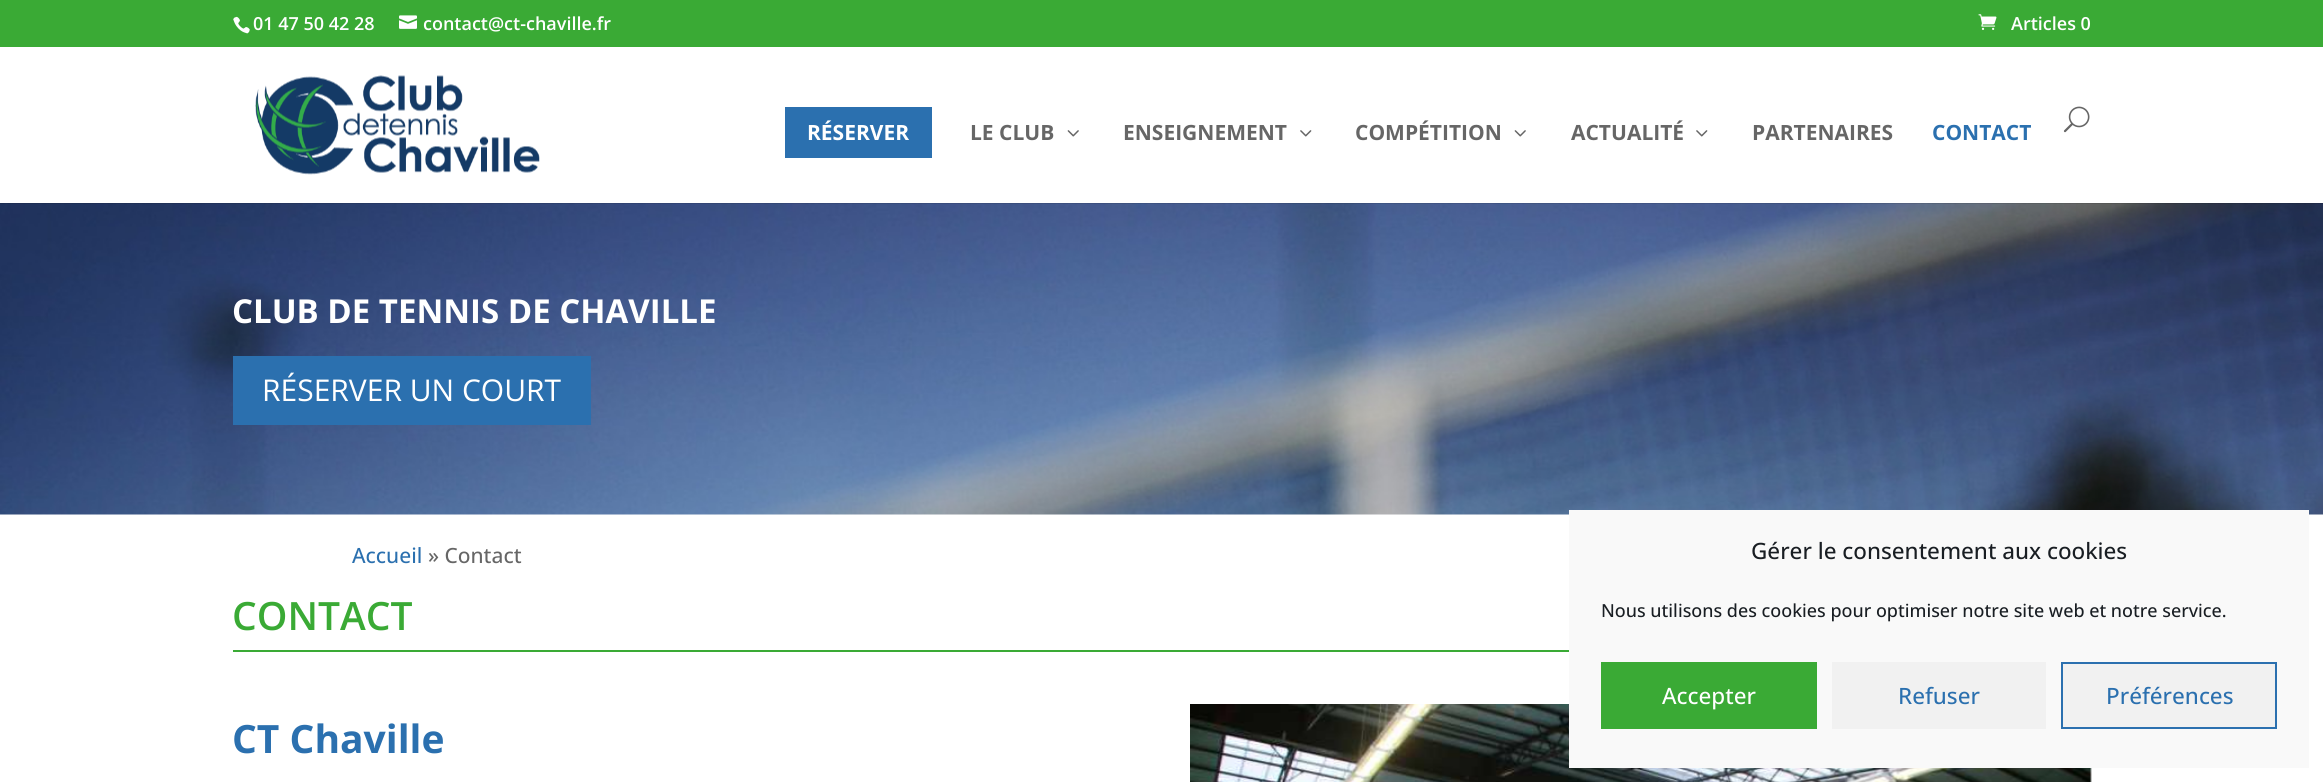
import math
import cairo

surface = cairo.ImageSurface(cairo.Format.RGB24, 2323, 782)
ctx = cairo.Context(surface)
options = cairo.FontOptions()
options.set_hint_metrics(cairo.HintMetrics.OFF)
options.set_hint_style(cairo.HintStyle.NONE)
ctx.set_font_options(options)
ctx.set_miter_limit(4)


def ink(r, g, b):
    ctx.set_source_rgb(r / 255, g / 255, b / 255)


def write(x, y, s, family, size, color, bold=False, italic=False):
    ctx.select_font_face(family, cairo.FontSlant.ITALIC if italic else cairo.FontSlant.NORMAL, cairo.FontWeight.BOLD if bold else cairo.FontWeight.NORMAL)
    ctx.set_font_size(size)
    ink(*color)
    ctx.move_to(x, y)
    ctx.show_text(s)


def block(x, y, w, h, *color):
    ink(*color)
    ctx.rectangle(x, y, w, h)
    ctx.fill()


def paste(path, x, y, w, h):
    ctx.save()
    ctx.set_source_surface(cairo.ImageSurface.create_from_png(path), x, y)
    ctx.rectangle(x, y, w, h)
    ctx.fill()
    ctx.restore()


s1 = dict(family="Open Sans SemiBold", size=18, color=(255, 255, 255))
s2 = dict(family="Open Sans", size=21, color=(255, 255, 255), bold=True)
s3 = dict(family="Open Sans", size=21, color=(102, 102, 102), bold=True)
s4 = dict(family="Open Sans", size=21, color=(43, 112, 175), bold=True)
s5 = dict(family="Open Sans", size=33, color=(255, 255, 255), bold=True)
s6 = dict(family="Open Sans", size=30, color=(255, 255, 255))
s7 = dict(family="Open Sans Medium", size=21, color=(43, 112, 175))
s8 = dict(family="Open Sans Medium", size=21, color=(102, 102, 102))
s9 = dict(family="Open Sans SemiBold", size=39, color=(58, 170, 53))
s10 = dict(family="Open Sans", size=39, color=(43, 112, 175), bold=True)
s11 = dict(family="Open Sans Medium", size=22.5, color=(25, 30, 35))
s12 = dict(family="Open Sans Medium", size=18, color=(25, 30, 35))
s13 = dict(family="Open Sans Medium", size=22.5, color=(255, 255, 255))
s14 = dict(family="Open Sans Medium", size=22.5, color=(43, 112, 175))

ink(255, 255, 255)
ctx.paint()
block(0, 0, 2323, 47, 58, 170, 53)
paste("pic1.png", 233, 16, 17, 18)
write(253, 30, "01 47 50 42 28", **s1)
paste("pic2.png", 399, 15, 18, 14)
write(423, 30, "contact@ct-chaville.fr", **s1)
paste("pic3.png", 1978, 14, 19, 16)
write(2011, 30, "Articles 0", **s1)
paste("pic8.png", 0, 203, 2323, 312)
ctx.set_source_rgba(0, 0, 0, 0.1)
ctx.new_path()
ctx.move_to(0, 202)
ctx.line_to(0, 204)
ctx.line_to(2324, 204)
ctx.line_to(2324, 48)
ctx.line_to(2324, 202)
ctx.close_path()
ctx.fill()
block(0, 202, 2323, 1, 255, 255, 255)
paste("pic4.png", 255, 75, 285, 100)
block(785, 107, 147, 51, 43, 112, 175)
write(807, 140, "RÉSERVER", **s2)
write(970, 140, "LE CLUB", **s3)
paste("pic5.png", 1067, 130, 12, 7)
write(1123, 140, "ENSEIGNEMENT", **s3)
paste("pic6.png", 1300, 130, 12, 7)
write(1355, 140, "COMPÉTITION", **s3)
paste("pic5.png", 1514, 130, 12, 7)
write(1571, 140, "ACTUALITÉ", **s3)
paste("pic6.png", 1696, 130, 12, 7)
write(1752, 140, "PARTENAIRES", **s3)
write(1932, 140, "CONTACT", **s4)
paste("pic7.png", 2063, 106, 27, 27)
write(232, 323, "CLUB DE TENNIS DE CHAVILLE", **s5)
block(233, 356, 358, 69, 43, 112, 175)
write(262, 401, "RÉSERVER UN COURT", **s6)
write(352, 563, "Accueil", **s7)
write(428, 563, "» Contact", **s8)
block(233, 650, 1336, 2, 58, 170, 53)
write(232, 630, "CONTACT", **s9)
write(232, 753, "CT Chaville", **s10)
paste("pic9.png", 1190, 704, 902, 78)
block(1569, 510, 740, 258, 249, 249, 249)
write(1751, 559, "Gérer le consentement aux cookies", **s11)
write(1601, 617, "Nous utilisons des cookies pour optimiser notre site web et notre service.", **s12)
block(1601, 662, 216, 67, 58, 170, 53)
write(1662, 704, "Accepter", **s13)
block(1832, 662, 214, 67, 241, 241, 241)
write(1898, 704, "Refuser", **s14)
ink(241, 241, 241)
ctx.rectangle(2062, 663, 214, 65)
ctx.fill_preserve()
ink(43, 112, 175)
ctx.stroke()
write(2106, 704, "Préférences", **s14)
surface.write_to_png("screenshot.png")
